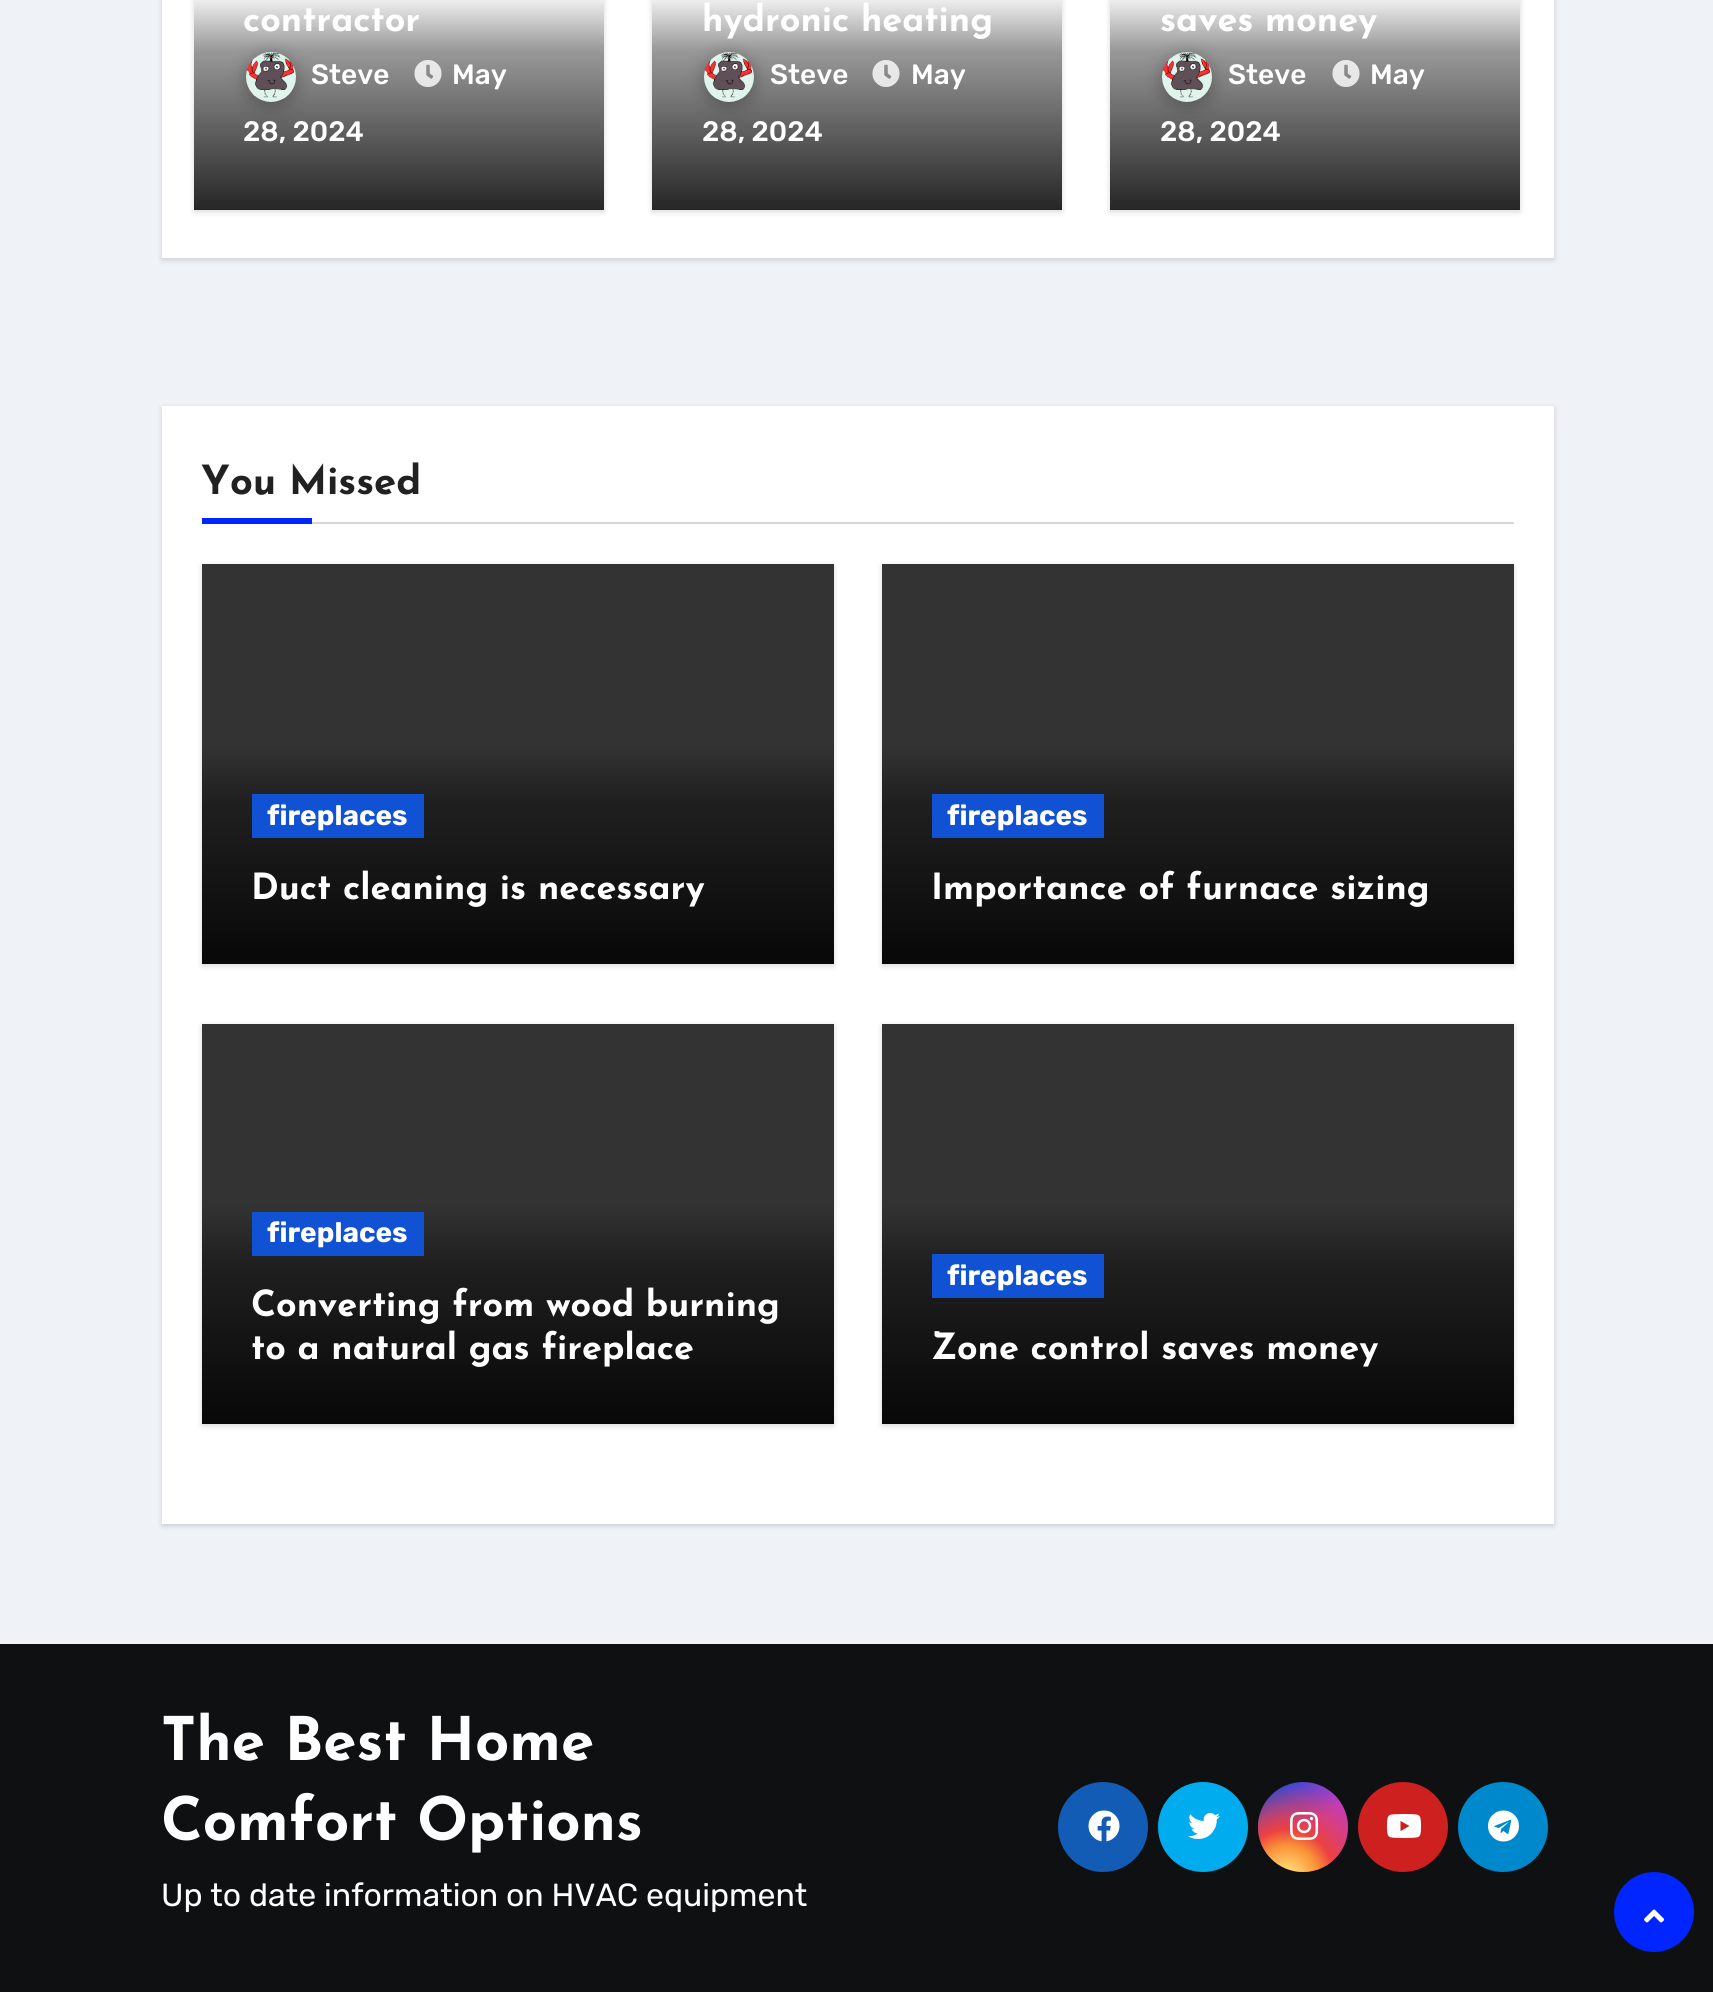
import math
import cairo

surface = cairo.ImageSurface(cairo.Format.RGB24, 1713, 1992)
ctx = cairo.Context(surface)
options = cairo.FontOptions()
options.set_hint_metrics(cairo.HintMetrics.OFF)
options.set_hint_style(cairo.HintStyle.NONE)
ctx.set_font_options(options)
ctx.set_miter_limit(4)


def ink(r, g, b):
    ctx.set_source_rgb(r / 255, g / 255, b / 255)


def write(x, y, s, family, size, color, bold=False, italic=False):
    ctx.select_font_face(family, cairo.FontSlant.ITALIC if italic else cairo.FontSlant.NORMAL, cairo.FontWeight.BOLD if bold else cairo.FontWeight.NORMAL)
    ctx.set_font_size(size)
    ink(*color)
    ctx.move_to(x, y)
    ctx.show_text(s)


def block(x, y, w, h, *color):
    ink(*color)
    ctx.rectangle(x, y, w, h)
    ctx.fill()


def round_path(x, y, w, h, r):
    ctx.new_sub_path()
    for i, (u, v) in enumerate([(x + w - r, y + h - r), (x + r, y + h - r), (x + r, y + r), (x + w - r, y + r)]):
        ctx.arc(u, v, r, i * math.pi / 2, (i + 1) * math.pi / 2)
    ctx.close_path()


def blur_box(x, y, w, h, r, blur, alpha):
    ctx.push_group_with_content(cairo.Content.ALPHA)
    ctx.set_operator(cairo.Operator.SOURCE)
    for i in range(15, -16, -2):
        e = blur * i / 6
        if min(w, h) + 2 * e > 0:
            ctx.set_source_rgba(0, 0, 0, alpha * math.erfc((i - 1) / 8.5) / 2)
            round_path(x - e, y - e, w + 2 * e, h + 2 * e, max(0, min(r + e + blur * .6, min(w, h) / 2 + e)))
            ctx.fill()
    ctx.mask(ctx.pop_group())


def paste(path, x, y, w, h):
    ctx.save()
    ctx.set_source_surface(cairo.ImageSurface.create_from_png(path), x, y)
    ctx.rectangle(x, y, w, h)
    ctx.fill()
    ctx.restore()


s1 = dict(family="Josefin Sans", size=36, color=(255, 255, 255), bold=True)
s2 = dict(family="Rubik Medium", size=28, color=(255, 255, 255))
s3 = dict(family="Josefin Sans", size=40, color=(33, 33, 33), bold=True)
s4 = dict(family="Rubik", size=28, color=(255, 255, 255), bold=True)
s5 = dict(family="Josefin Sans", size=60, color=(255, 255, 255), bold=True)
s6 = dict(family="Rubik Light", size=32, color=(255, 255, 255))

ink(239, 242, 247)
ctx.paint()
ink(0, 0, 0)
blur_box(162, -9, 1392, 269, 0, 3, 0.15)
block(162, 0, 1392, 258, 255, 255, 255)
ink(0, 0, 0)
blur_box(194, -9, 410, 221, 0, 3, 0.15)
gradient = cairo.LinearGradient(399, -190, 399, 210)
gradient.add_color_stop_rgba(0, 1, 1, 1, 1)
gradient.add_color_stop_rgba(0.45, 1, 1, 1, 1)
gradient.add_color_stop_rgba(0.6, 0.6, 0.6, 0.6, 1)
gradient.add_color_stop_rgba(1, 0.149, 0.149, 0.149, 1)
ctx.set_source(gradient)
ctx.rectangle(194, 0, 410, 210)
ctx.fill()
write(243, 31, "contractor", **s1)
ink(33, 33, 33)
blur_box(244, 54, 54, 54, 27, 8, 0.3)
paste("pic1.png", 246, 52, 50, 50)
paste("pic2.png", 414, 60, 28, 27)
write(452, 84, "May", **s2)
write(243, 141, "28, 2024", **s2)
write(311, 84, "Steve", **s2)
ink(0, 0, 0)
blur_box(652, -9, 410, 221, 0, 3, 0.15)
gradient = cairo.LinearGradient(857, -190, 857, 210)
gradient.add_color_stop_rgba(0, 1, 1, 1, 1)
gradient.add_color_stop_rgba(0.45, 1, 1, 1, 1)
gradient.add_color_stop_rgba(0.6, 0.6, 0.6, 0.6, 1)
gradient.add_color_stop_rgba(1, 0.149, 0.149, 0.149, 1)
ctx.set_source(gradient)
ctx.rectangle(652, 0, 410, 210)
ctx.fill()
write(702, 31, "hydronic heating", **s1)
ink(33, 33, 33)
blur_box(702, 54, 54, 54, 27, 8, 0.3)
paste("pic3.png", 704, 52, 50, 50)
paste("pic2.png", 872, 60, 28, 27)
write(911, 84, "May", **s2)
write(702, 141, "28, 2024", **s2)
write(770, 84, "Steve", **s2)
ink(0, 0, 0)
blur_box(1110, -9, 410, 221, 0, 3, 0.15)
gradient = cairo.LinearGradient(1315, -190, 1315, 210)
gradient.add_color_stop_rgba(0, 1, 1, 1, 1)
gradient.add_color_stop_rgba(0.45, 1, 1, 1, 1)
gradient.add_color_stop_rgba(0.6, 0.6, 0.6, 0.6, 1)
gradient.add_color_stop_rgba(1, 0.149, 0.149, 0.149, 1)
ctx.set_source(gradient)
ctx.rectangle(1110, 0, 410, 210)
ctx.fill()
write(1160, 31, "saves money", **s1)
ink(33, 33, 33)
blur_box(1160, 54, 54, 54, 27, 8, 0.3)
paste("pic3.png", 1162, 52, 50, 50)
paste("pic2.png", 1332, 60, 28, 27)
write(1370, 84, "May", **s2)
write(1160, 141, "28, 2024", **s2)
write(1228, 84, "Steve", **s2)
ink(0, 0, 0)
blur_box(162, 408, 1392, 1118, 0, 3, 0.15)
block(162, 406, 1392, 1118, 255, 255, 255)
block(312, 522, 1202, 2, 215, 215, 215)
write(201, 494, "You Missed", **s3)
block(202, 518, 110, 6, 0, 37, 255)
ink(0, 0, 0)
blur_box(202, 566, 632, 400, 0, 3, 0.15)
gradient = cairo.LinearGradient(518, 564, 518, 964)
gradient.add_color_stop_rgba(0, 0.2, 0.2, 0.2, 1)
gradient.add_color_stop_rgba(0.45, 0.2, 0.2, 0.2, 1)
gradient.add_color_stop_rgba(0.6, 0.122, 0.122, 0.122, 1)
gradient.add_color_stop_rgba(1, 0.031, 0.031, 0.031, 1)
ctx.set_source(gradient)
ctx.rectangle(202, 564, 632, 400)
ctx.fill()
block(252, 794, 172, 44, 17, 81, 211)
write(267, 825, "fireplaces", **s4)
write(251, 899, "Duct cleaning is necessary", **s1)
ink(0, 0, 0)
blur_box(882, 566, 632, 400, 0, 3, 0.15)
gradient = cairo.LinearGradient(1198, 564, 1198, 964)
gradient.add_color_stop_rgba(0, 0.2, 0.2, 0.2, 1)
gradient.add_color_stop_rgba(0.45, 0.2, 0.2, 0.2, 1)
gradient.add_color_stop_rgba(0.6, 0.122, 0.122, 0.122, 1)
gradient.add_color_stop_rgba(1, 0.031, 0.031, 0.031, 1)
ctx.set_source(gradient)
ctx.rectangle(882, 564, 632, 400)
ctx.fill()
block(932, 794, 172, 44, 17, 81, 211)
write(947, 825, "fireplaces", **s4)
write(931, 899, "Importance of furnace sizing", **s1)
ink(0, 0, 0)
blur_box(202, 1026, 632, 400, 0, 3, 0.15)
gradient = cairo.LinearGradient(518, 1024, 518, 1424)
gradient.add_color_stop_rgba(0, 0.2, 0.2, 0.2, 1)
gradient.add_color_stop_rgba(0.45, 0.2, 0.2, 0.2, 1)
gradient.add_color_stop_rgba(0.6, 0.122, 0.122, 0.122, 1)
gradient.add_color_stop_rgba(1, 0.031, 0.031, 0.031, 1)
ctx.set_source(gradient)
ctx.rectangle(202, 1024, 632, 400)
ctx.fill()
block(252, 1212, 172, 44, 17, 81, 211)
write(267, 1242, "fireplaces", **s4)
write(251, 1316, "Converting from wood burning", **s1)
write(251, 1359, "to a natural gas fireplace", **s1)
ink(0, 0, 0)
blur_box(882, 1026, 632, 400, 0, 3, 0.15)
gradient = cairo.LinearGradient(1198, 1024, 1198, 1424)
gradient.add_color_stop_rgba(0, 0.2, 0.2, 0.2, 1)
gradient.add_color_stop_rgba(0.45, 0.2, 0.2, 0.2, 1)
gradient.add_color_stop_rgba(0.6, 0.122, 0.122, 0.122, 1)
gradient.add_color_stop_rgba(1, 0.031, 0.031, 0.031, 1)
ctx.set_source(gradient)
ctx.rectangle(882, 1024, 632, 400)
ctx.fill()
block(932, 1254, 172, 44, 17, 81, 211)
write(947, 1285, "fireplaces", **s4)
write(931, 1359, "Zone control saves money", **s1)
block(0, 1644, 1713, 348, 15, 16, 18)
write(161, 1760, "The Best Home", **s5)
write(161, 1840, "Comfort Options", **s5)
write(161, 1906, "Up to date information on HVAC equipment", **s6)
ink(19, 92, 182)
ctx.new_path()
ctx.arc(1103, 1827, 45, 0, 2 * math.pi)
ctx.fill()
paste("pic4.png", 1088, 1810, 32, 32)
ink(0, 172, 237)
ctx.arc(1203, 1827, 45, 0, 2 * math.pi)
ctx.fill()
paste("pic5.png", 1188, 1813, 32, 26)
gradient = cairo.LinearGradient(1258, 1782, 1348, 1872)
gradient.add_color_stop_rgba(0.12, 0.137, 0.294, 0.843, 1)
gradient.add_color_stop_rgba(0.58, 0.765, 0.235, 0.745, 1)
ctx.set_source(gradient)
ctx.arc(1303, 1827, 45, 0, 2 * math.pi)
ctx.fill()
gradient = cairo.RadialGradient(1287, 1877, 0, 1287, 1877, 113)
gradient.add_color_stop_rgba(0, 1, 0.882, 0.49, 1)
gradient.add_color_stop_rgba(0.1, 1, 0.804, 0.412, 1)
gradient.add_color_stop_rgba(0.28, 0.98, 0.569, 0.216, 1)
gradient.add_color_stop_rgba(0.42, 0.922, 0.255, 0.255, 1)
gradient.add_color_stop_rgba(0.82, 0.922, 0.255, 0.255, 0)
ctx.set_source(gradient)
ctx.arc(1303, 1827, 45, 0, 2 * math.pi)
ctx.fill()
paste("pic6.png", 1290, 1812, 29, 28)
ink(205, 32, 31)
ctx.arc(1403, 1827, 45, 0, 2 * math.pi)
ctx.fill()
paste("pic7.png", 1386, 1814, 36, 24)
ink(0, 136, 204)
ctx.arc(1503, 1827, 45, 0, 2 * math.pi)
ctx.fill()
paste("pic8.png", 1488, 1810, 31, 32)
ink(0, 37, 255)
ctx.arc(1654, 1912, 38, 0, 2 * math.pi)
ctx.fill_preserve()
ctx.set_line_width(4)
ctx.stroke()
paste("pic9.png", 1644, 1909, 20, 14)
surface.write_to_png("screenshot.png")
